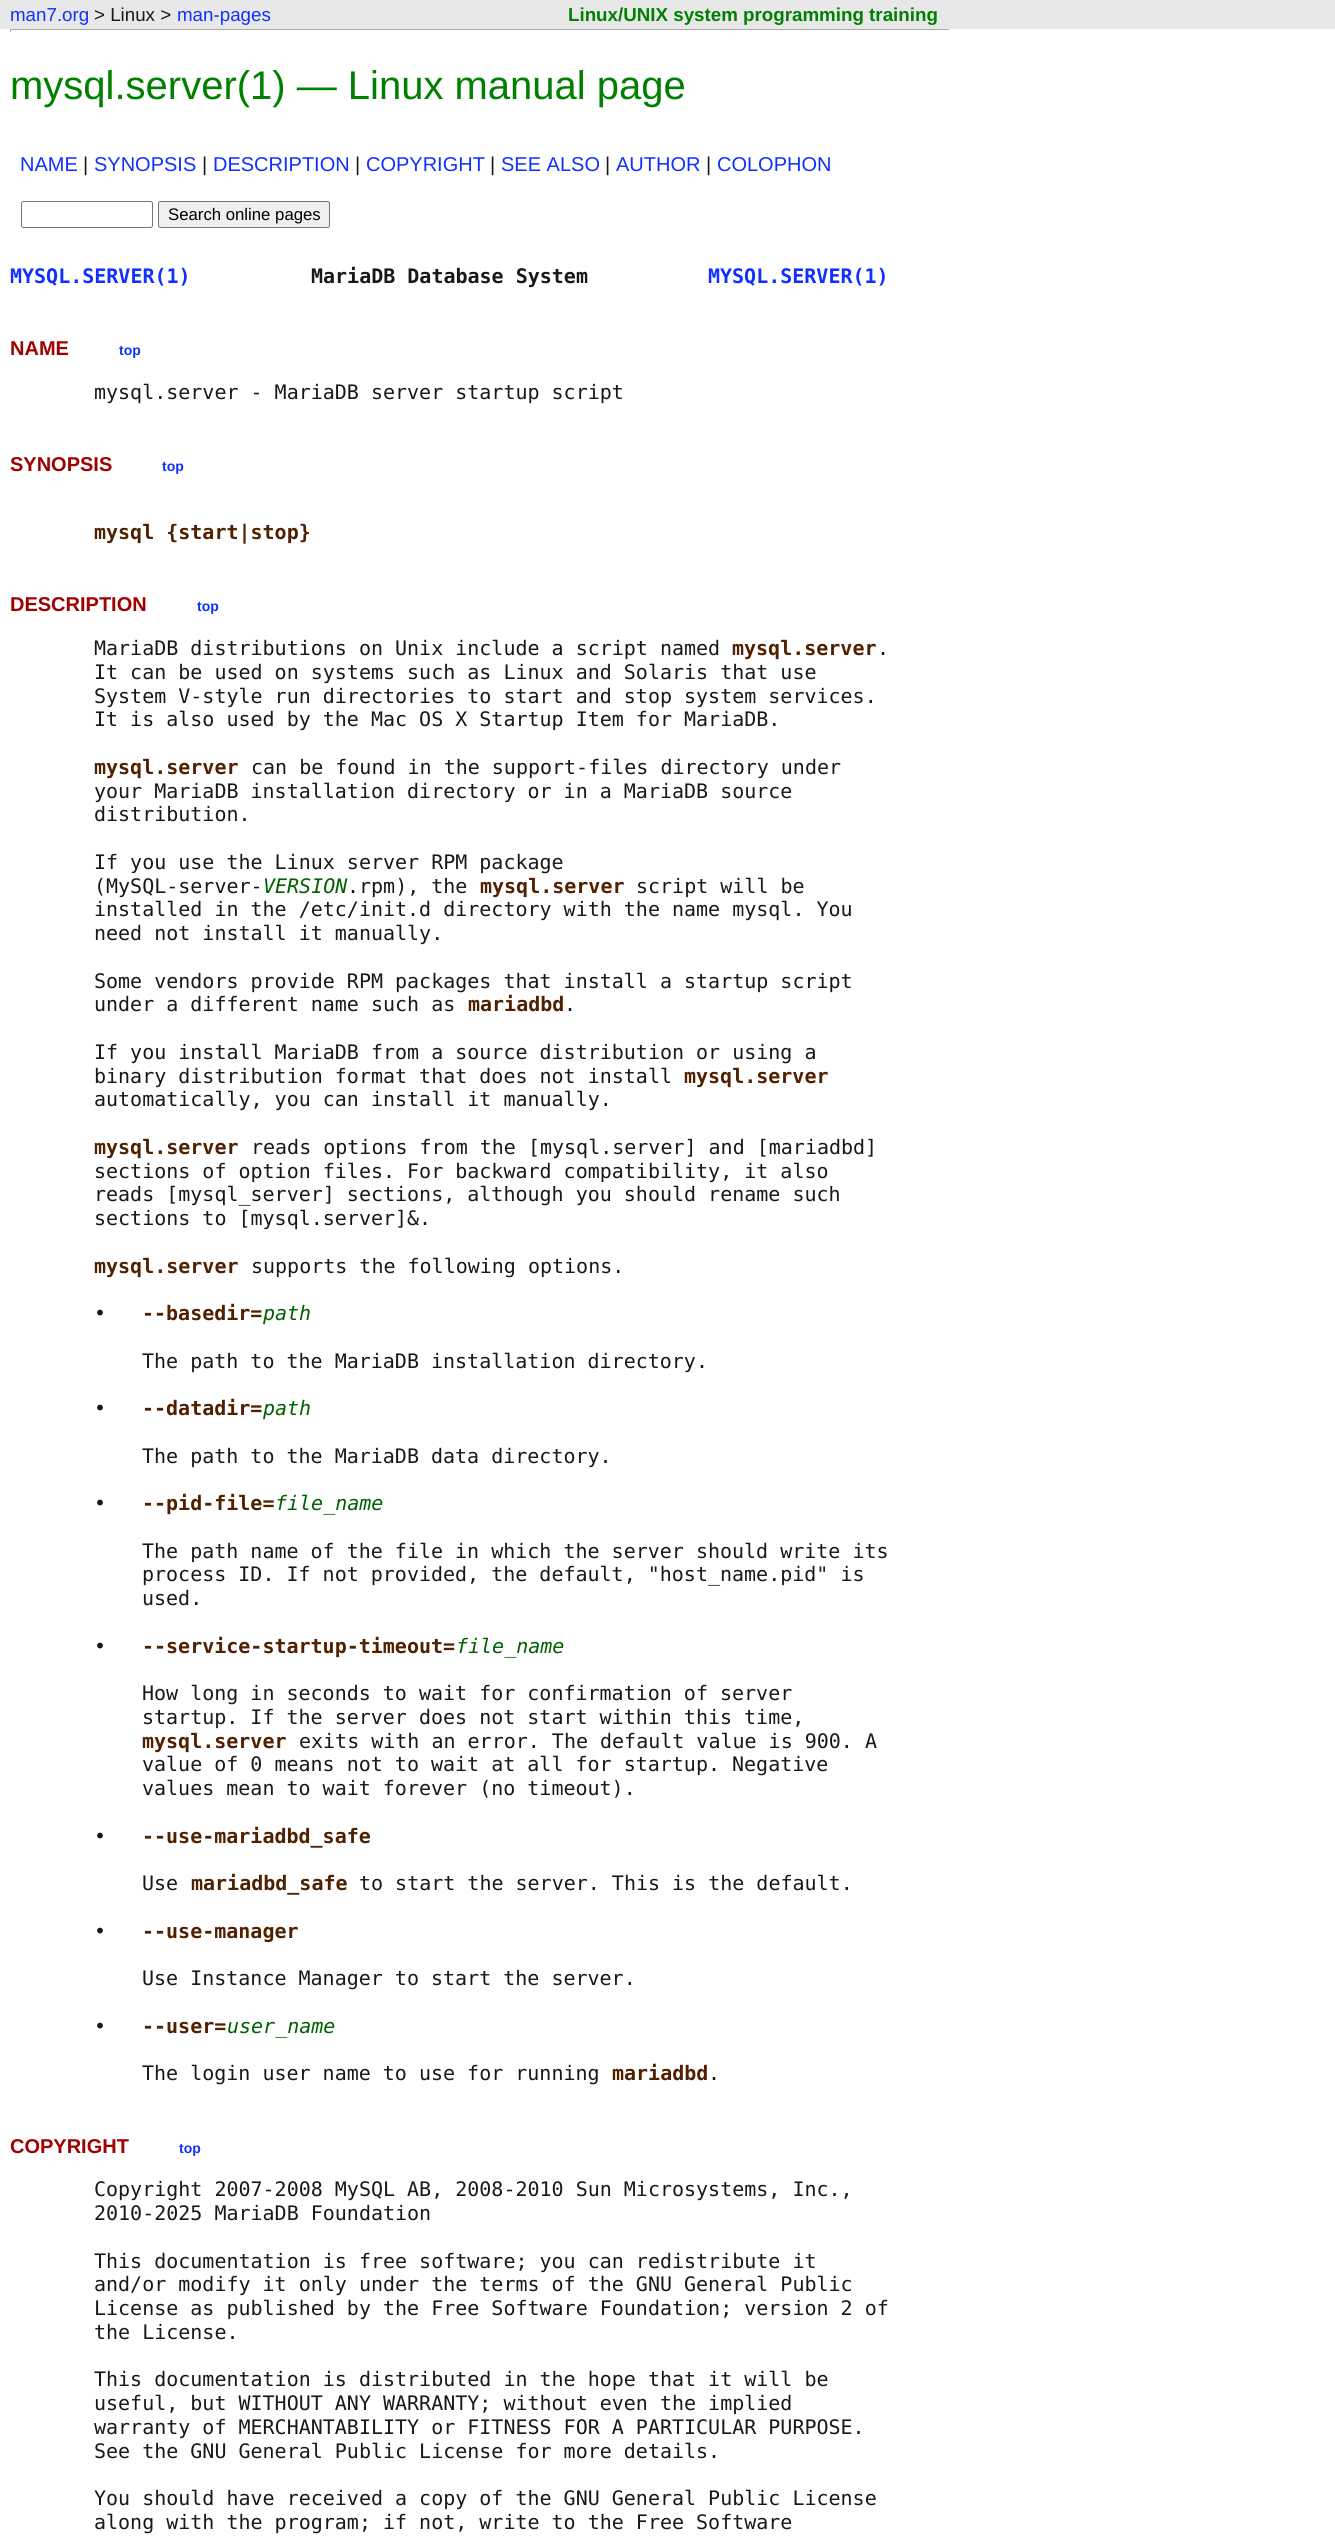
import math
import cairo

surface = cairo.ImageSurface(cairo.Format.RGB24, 1335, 2544)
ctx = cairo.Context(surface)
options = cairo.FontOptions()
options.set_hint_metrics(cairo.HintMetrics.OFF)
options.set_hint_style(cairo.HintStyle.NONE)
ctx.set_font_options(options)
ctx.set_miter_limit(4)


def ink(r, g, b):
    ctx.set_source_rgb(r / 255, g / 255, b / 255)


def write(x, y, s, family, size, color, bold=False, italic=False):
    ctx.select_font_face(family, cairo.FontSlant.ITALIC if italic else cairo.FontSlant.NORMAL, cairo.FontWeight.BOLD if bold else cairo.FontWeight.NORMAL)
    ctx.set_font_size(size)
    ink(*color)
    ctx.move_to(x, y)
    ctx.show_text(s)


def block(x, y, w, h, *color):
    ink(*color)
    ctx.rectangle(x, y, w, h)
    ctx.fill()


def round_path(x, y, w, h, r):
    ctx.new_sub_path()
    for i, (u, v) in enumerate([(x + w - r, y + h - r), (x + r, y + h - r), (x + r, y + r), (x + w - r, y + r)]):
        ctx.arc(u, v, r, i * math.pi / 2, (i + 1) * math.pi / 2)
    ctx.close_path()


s1 = dict(family="Liberation Sans", size=18.75, color=(16, 48, 255))
s2 = dict(family="Liberation Sans", size=18.75, color=(24, 24, 24))
s3 = dict(family="Liberation Sans", size=18.75, color=(0, 128, 0), bold=True)
s4 = dict(family="Liberation Sans", size=40, color=(0, 128, 0))
s5 = dict(family="Liberation Sans", size=20, color=(16, 48, 255))
s6 = dict(family="Liberation Sans", size=20, color=(24, 24, 24))
s7 = dict(family="Liberation Sans", size=16.75, color=(0, 0, 0))
s8 = dict(family="DejaVu Sans Mono", size=20, color=(16, 48, 255), bold=True)
s9 = dict(family="DejaVu Sans Mono", size=20, color=(24, 24, 24), bold=True)
s10 = dict(family="Liberation Sans", size=20, color=(160, 0, 0), bold=True)
s11 = dict(family="Liberation Sans", size=14, color=(16, 48, 255), bold=True)
s12 = dict(family="DejaVu Sans Mono", size=20, color=(24, 24, 24))
s13 = dict(family="DejaVu Sans Mono", size=20, color=(80, 32, 0), bold=True)
s14 = dict(family="DejaVu Sans Mono", size=20, color=(0, 96, 0), italic=True)

ink(255, 255, 255)
ctx.paint()
block(0, 0, 1335, 29, 232, 232, 232)
write(10, 21, "man7.org", **s1)
write(94, 21, "> Linux >", **s2)
write(177, 21, "man-pages", **s1)
write(568, 21, "Linux/UNIX system programming training", **s3)
block(10, 29, 940, 1, 170, 170, 170)
block(949, 29, 1, 3, 255, 255, 255)
block(10, 29, 1, 3, 170, 170, 170)
write(10, 99, "mysql.server(1) — Linux manual page", **s4)
write(20, 171, "NAME", **s5)
write(83, 171, "|", **s6)
write(94, 171, "SYNOPSIS", **s5)
write(202, 171, "|", **s6)
write(213, 171, "DESCRIPTION", **s5)
write(355, 171, "|", **s6)
write(366, 171, "COPYRIGHT", **s5)
write(490, 171, "|", **s6)
write(501, 171, "SEE ALSO", **s5)
write(605, 171, "|", **s6)
write(616, 171, "AUTHOR", **s5)
write(706, 171, "|", **s6)
write(717, 171, "COLOPHON", **s5)
round_path(21.5, 201.5, 131, 26, 2)
ink(118, 118, 118)
ctx.set_line_width(1)
ctx.stroke()
ink(239, 239, 239)
round_path(158.5, 201.5, 171, 26, 2)
ctx.fill_preserve()
ink(118, 118, 118)
ctx.stroke()
write(168, 220, "Search online pages", **s7)
write(10, 283, "MYSQL.SERVER(1)", **s8)
write(311, 283, "MariaDB Database System", **s9)
write(708, 283, "MYSQL.SERVER(1)", **s8)
write(10, 355, "NAME", **s10)
write(119, 355, "top", **s11)
write(94, 399, "mysql.server - MariaDB server startup script", **s12)
write(10, 471, "SYNOPSIS", **s10)
write(162, 471, "top", **s11)
write(94, 539, "mysql {start|stop}", **s13)
write(10, 611, "DESCRIPTION", **s10)
write(197, 611, "top", **s11)
write(94, 655, "MariaDB distributions on Unix include a script named", **s12)
write(732, 655, "mysql.server", **s13)
write(877, 655, ".", **s12)
write(94, 679, "It can be used on systems such as Linux and Solaris that use", **s12)
write(94, 703, "System V-style run directories to start and stop system services.", **s12)
write(94, 726, "It is also used by the Mac OS X Startup Item for MariaDB.", **s12)
write(94, 774, "mysql.server", **s13)
write(251, 774, "can be found in the support-files directory under", **s12)
write(94, 798, "your MariaDB installation directory or in a MariaDB source", **s12)
write(94, 821, "distribution.", **s12)
write(94, 869, "If you use the Linux server RPM package", **s12)
write(94, 893, "(MySQL-server-", **s12)
write(263, 893, "VERSION", **s14)
write(347, 893, ".rpm), the", **s12)
write(480, 893, "mysql.server", **s13)
write(636, 893, "script will be", **s12)
write(94, 916, "installed in the /etc/init.d directory with the name mysql. You", **s12)
write(94, 940, "need not install it manually.", **s12)
write(94, 988, "Some vendors provide RPM packages that install a startup script", **s12)
write(94, 1011, "under a different name such as", **s12)
write(468, 1011, "mariadbd", **s13)
write(564, 1011, ".", **s12)
write(94, 1059, "If you install MariaDB from a source distribution or using a", **s12)
write(94, 1083, "binary distribution format that does not install", **s12)
write(684, 1083, "mysql.server", **s13)
write(94, 1106, "automatically, you can install it manually.", **s12)
write(94, 1154, "mysql.server", **s13)
write(251, 1154, "reads options from the [mysql.server] and [mariadbd]", **s12)
write(94, 1178, "sections of option files. For backward compatibility, it also", **s12)
write(94, 1201, "reads [mysql_server] sections, although you should rename such", **s12)
write(94, 1225, "sections to [mysql.server]&.", **s12)
write(94, 1273, "mysql.server", **s13)
write(251, 1273, "supports the following options.", **s12)
write(94, 1320, "•", **s12)
write(142, 1320, "--basedir=", **s13)
write(263, 1320, "path", **s14)
write(142, 1368, "The path to the MariaDB installation directory.", **s12)
write(94, 1415, "•", **s12)
write(142, 1415, "--datadir=", **s13)
write(263, 1415, "path", **s14)
write(142, 1463, "The path to the MariaDB data directory.", **s12)
write(94, 1510, "•", **s12)
write(142, 1510, "--pid-file=", **s13)
write(275, 1510, "file_name", **s14)
write(142, 1558, "The path name of the file in which the server should write its", **s12)
write(142, 1581, "process ID. If not provided, the default, \"host_name.pid\" is", **s12)
write(142, 1605, "used.", **s12)
write(94, 1653, "•", **s12)
write(142, 1653, "--service-startup-timeout=", **s13)
write(456, 1653, "file_name", **s14)
write(142, 1700, "How long in seconds to wait for confirmation of server", **s12)
write(142, 1724, "startup. If the server does not start within this time,", **s12)
write(142, 1748, "mysql.server", **s13)
write(299, 1748, "exits with an error. The default value is 900. A", **s12)
write(142, 1771, "value of 0 means not to wait at all for startup. Negative", **s12)
write(142, 1795, "values mean to wait forever (no timeout).", **s12)
write(94, 1843, "•", **s12)
write(142, 1843, "--use-mariadbd_safe", **s13)
write(142, 1890, "Use", **s12)
write(191, 1890, "mariadbd_safe", **s13)
write(359, 1890, "to start the server. This is the default.", **s12)
write(94, 1938, "•", **s12)
write(142, 1938, "--use-manager", **s13)
write(142, 1985, "Use Instance Manager to start the server.", **s12)
write(94, 2033, "•", **s12)
write(142, 2033, "--user=", **s13)
write(227, 2033, "user_name", **s14)
write(142, 2080, "The login user name to use for running", **s12)
write(612, 2080, "mariadbd", **s13)
write(708, 2080, ".", **s12)
write(10, 2153, "COPYRIGHT", **s10)
write(179, 2153, "top", **s11)
write(94, 2196, "Copyright 2007-2008 MySQL AB, 2008-2010 Sun Microsystems, Inc.,", **s12)
write(94, 2220, "2010-2025 MariaDB Foundation", **s12)
write(94, 2268, "This documentation is free software; you can redistribute it", **s12)
write(94, 2291, "and/or modify it only under the terms of the GNU General Public", **s12)
write(94, 2315, "License as published by the Free Software Foundation; version 2 of", **s12)
write(94, 2339, "the License.", **s12)
write(94, 2386, "This documentation is distributed in the hope that it will be", **s12)
write(94, 2410, "useful, but WITHOUT ANY WARRANTY; without even the implied", **s12)
write(94, 2434, "warranty of MERCHANTABILITY or FITNESS FOR A PARTICULAR PURPOSE.", **s12)
write(94, 2458, "See the GNU General Public License for more details.", **s12)
write(94, 2505, "You should have received a copy of the GNU General Public License", **s12)
write(94, 2529, "along with the program; if not, write to the Free Software", **s12)
surface.write_to_png("screenshot.png")
